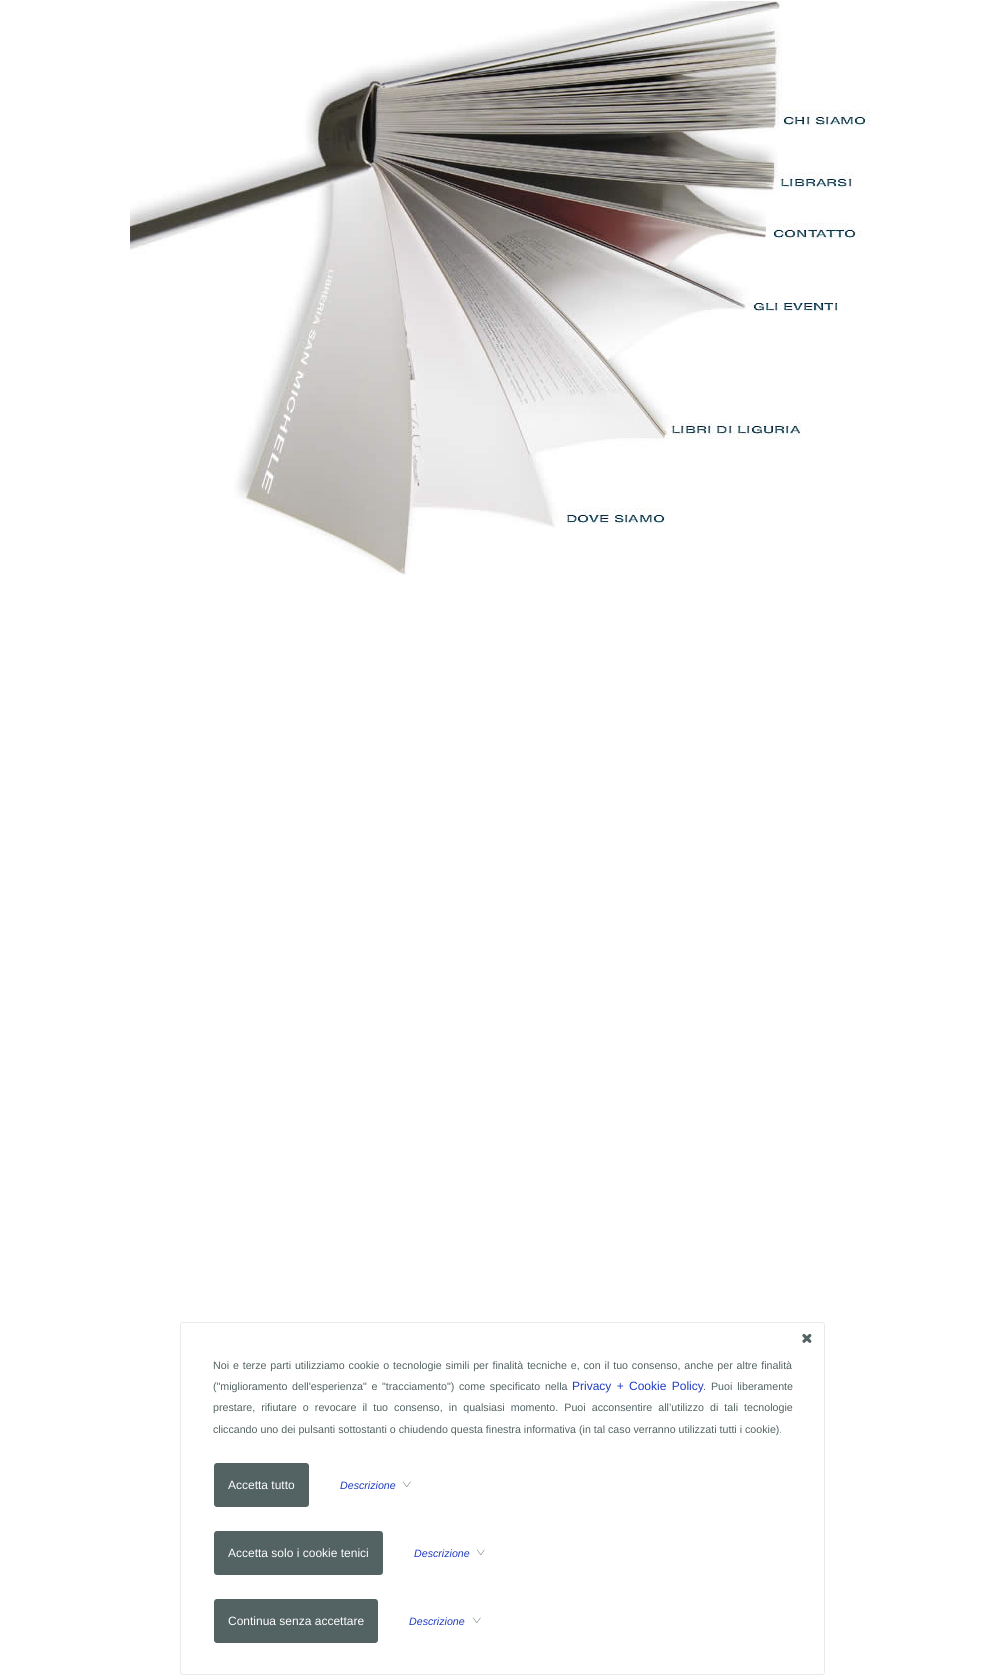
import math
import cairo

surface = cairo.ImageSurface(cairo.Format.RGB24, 1005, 1675)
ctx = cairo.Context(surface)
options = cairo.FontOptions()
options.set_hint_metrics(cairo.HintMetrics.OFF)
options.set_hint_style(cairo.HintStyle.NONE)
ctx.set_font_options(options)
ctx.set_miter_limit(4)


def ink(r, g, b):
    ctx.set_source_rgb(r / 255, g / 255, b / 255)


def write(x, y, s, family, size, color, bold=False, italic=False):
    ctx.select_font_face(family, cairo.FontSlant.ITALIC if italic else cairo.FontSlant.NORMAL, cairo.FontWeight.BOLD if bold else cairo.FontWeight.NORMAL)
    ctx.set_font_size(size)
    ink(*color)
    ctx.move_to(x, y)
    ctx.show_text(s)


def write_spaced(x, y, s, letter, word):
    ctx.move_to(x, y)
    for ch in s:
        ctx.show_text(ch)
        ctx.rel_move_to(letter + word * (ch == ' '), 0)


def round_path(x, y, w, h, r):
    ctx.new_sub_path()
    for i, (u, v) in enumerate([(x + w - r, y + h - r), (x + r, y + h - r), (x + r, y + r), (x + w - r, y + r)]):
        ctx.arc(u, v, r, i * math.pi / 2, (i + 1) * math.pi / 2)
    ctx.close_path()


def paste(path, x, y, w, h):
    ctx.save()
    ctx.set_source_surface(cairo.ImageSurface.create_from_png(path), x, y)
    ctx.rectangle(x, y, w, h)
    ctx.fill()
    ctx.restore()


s1 = dict(family="Liberation Sans", size=10.67, color=(83, 98, 98))
s2 = dict(family="Liberation Sans", size=12, color=(255, 255, 255))
s3 = dict(family="Liberation Sans", size=10.67, color=(32, 60, 192), italic=True)

ink(255, 255, 255)
ctx.paint()
paste("pic1.png", 290, 156, 7, 2)
paste("pic2.png", 297, 29, 262, 129)
paste("pic3.png", 559, 1, 223, 109)
paste("pic4.png", 559, 110, 191, 305)
paste("pic5.png", 750, 110, 120, 22)
paste("pic6.png", 130, 158, 238, 108)
paste("pic7.png", 368, 158, 191, 375)
paste("pic8.png", 750, 144, 28, 28)
paste("pic9.png", 750, 172, 104, 23)
paste("pic10.png", 750, 209, 16, 14)
paste("pic11.png", 750, 223, 112, 16)
paste("pic12.png", 234, 266, 134, 291)
paste("pic13.png", 750, 303, 88, 8)
paste("pic14.png", 559, 415, 106, 32)
paste("pic15.png", 665, 415, 136, 24)
paste("pic16.png", 567, 508, 98, 16)
paste("pic17.png", 368, 533, 43, 42)
round_path(180.5, 1322.5, 644, 352, 2.5)
ink(234, 234, 234)
ctx.set_line_width(1)
ctx.stroke()
paste("pic18.png", 802, 1333, 10, 10)
ctx.select_font_face("Liberation Sans")
ctx.set_font_size(10.67)
ink(83, 98, 98)
write_spaced(213, 1369, "Noi e terze parti utilizziamo cookie o tecnologie simili per finalità tecniche e, con il tuo consenso, anche per altre finalità", 0, 0.9)
write_spaced(213, 1390, "(\"miglioramento dell'esperienza\" e \"tracciamento\") come specificato nella", 0, 1.75)
ctx.set_font_size(12)
ink(32, 60, 192)
write_spaced(572, 1390, "Privacy + Cookie Policy", 0, 2)
ctx.set_font_size(10.67)
ink(83, 98, 98)
write_spaced(703, 1390, ". Puoi liberamente", 0, 2)
write_spaced(213, 1411, "prestare, rifiutare o revocare il tuo consenso, in qualsiasi momento. Puoi acconsentire all’utilizzo di tali tecnologie", 0, 3.1)
write(213, 1433, "cliccando uno dei pulsanti sottostanti o chiudendo questa finestra informativa (in tal caso verranno utilizzati tutti i cookie).", **s1)
round_path(214, 1463, 95, 44, 3)
ctx.fill()
write(228, 1489, "Accetta tutto", **s2)
write(340, 1489, "Descrizione", **s3)
paste("pic19.png", 402, 1481, 9, 6)
ink(83, 98, 98)
round_path(214, 1531, 169, 44, 3)
ctx.fill()
write(228, 1557, "Accetta solo i cookie tenici", **s2)
write(414, 1557, "Descrizione", **s3)
paste("pic19.png", 476, 1549, 9, 6)
ink(83, 98, 98)
round_path(214, 1599, 164, 44, 3)
ctx.fill()
write(228, 1625, "Continua senza accettare", **s2)
write(409, 1625, "Descrizione", **s3)
paste("pic19.png", 472, 1617, 9, 6)
surface.write_to_png("screenshot.png")
